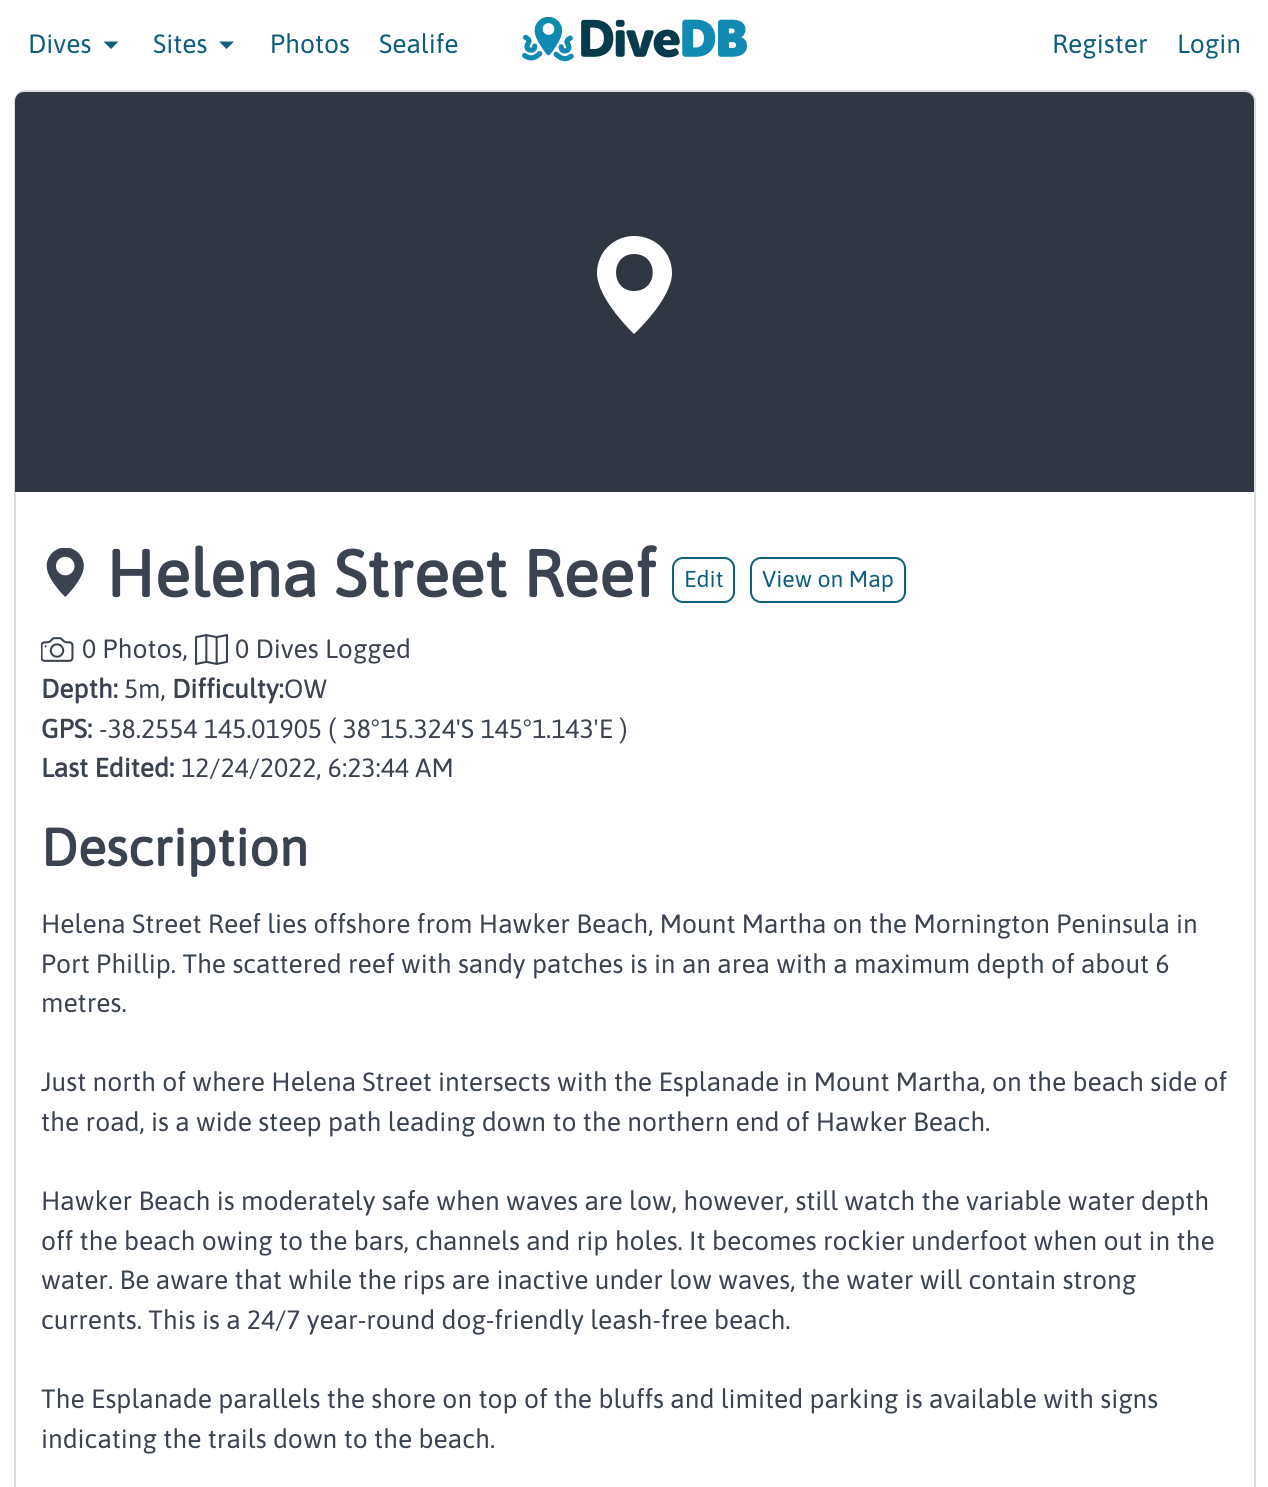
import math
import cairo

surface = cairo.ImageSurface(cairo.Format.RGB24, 1268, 1487)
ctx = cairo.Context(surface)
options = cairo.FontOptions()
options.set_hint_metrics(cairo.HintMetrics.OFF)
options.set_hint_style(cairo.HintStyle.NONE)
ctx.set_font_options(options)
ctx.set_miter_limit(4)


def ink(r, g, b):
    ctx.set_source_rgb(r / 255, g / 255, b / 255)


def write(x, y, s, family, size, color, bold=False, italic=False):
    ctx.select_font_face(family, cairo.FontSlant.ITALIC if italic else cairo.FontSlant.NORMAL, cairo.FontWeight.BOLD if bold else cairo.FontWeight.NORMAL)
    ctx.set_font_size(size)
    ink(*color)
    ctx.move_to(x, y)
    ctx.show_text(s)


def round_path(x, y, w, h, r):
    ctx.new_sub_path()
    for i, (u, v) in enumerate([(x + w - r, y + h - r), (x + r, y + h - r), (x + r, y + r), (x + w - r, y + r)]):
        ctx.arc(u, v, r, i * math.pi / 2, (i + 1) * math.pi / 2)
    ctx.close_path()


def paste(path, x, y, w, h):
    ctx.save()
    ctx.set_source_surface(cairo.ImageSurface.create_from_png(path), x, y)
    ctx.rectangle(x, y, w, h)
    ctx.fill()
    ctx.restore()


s1 = dict(family="Asap", size=26.4, color=(14, 94, 124))
s2 = dict(family="Asap", size=66, color=(59, 67, 81), bold=True)
s3 = dict(family="Asap", size=23, color=(14, 94, 124))
s4 = dict(family="Asap", size=26.4, color=(59, 67, 81))
s5 = dict(family="Asap", size=26.4, color=(59, 67, 81), bold=True)
s6 = dict(family="Asap", size=52.75, color=(59, 67, 81), bold=True)

ink(255, 255, 255)
ctx.paint()
write(28, 53, "Dives", **s1)
ctx.new_path()
ctx.move_to(103.5, 41.5)
ctx.line_to(118.5, 41.5)
ctx.line_to(111, 49)
ctx.close_path()
ctx.fill()
write(153, 53, "Sites", **s1)
ctx.new_path()
ctx.move_to(219, 41.5)
ctx.line_to(234, 41.5)
ctx.line_to(226.5, 49)
ctx.close_path()
ctx.fill()
write(270, 53, "Photos", **s1)
write(379, 53, "Sealife", **s1)
paste("pic1.png", 522, 17, 225, 45)
write(1052, 53, "Register", **s1)
write(1177, 53, "Login", **s1)
round_path(15, 91, 1240, 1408, 10)
ink(218, 222, 228)
ctx.stroke()
ink(48, 55, 66)
ctx.new_path()
ctx.move_to(24, 92)
ctx.line_to(1245, 92)
ctx.curve_to(1250, 92, 1254, 96, 1254, 101)
ctx.line_to(1254, 492)
ctx.line_to(15, 492)
ctx.line_to(15, 101)
ctx.curve_to(15, 96, 19, 92, 24, 92)
ctx.close_path()
ctx.fill()
ink(255, 255, 255)
ctx.set_fill_rule(cairo.FillRule.EVEN_ODD)
ctx.new_path()
ctx.move_to(634, 334)
ctx.curve_to(634, 334, 672, 299, 672, 273)
ctx.curve_to(672, 252, 655, 236, 634, 236)
ctx.curve_to(614, 236, 597, 252, 597, 273)
ctx.curve_to(597, 299, 634, 334, 634, 334)
ctx.close_path()
ctx.move_to(634, 291)
ctx.curve_to(659, 291, 659, 254, 634, 254)
ctx.curve_to(610, 254, 610, 291, 634, 291)
ctx.close_path()
ctx.fill()
paste("pic2.png", 46, 548, 38, 49)
write(106, 597, "Helena Street Reef", **s2)
round_path(673, 558, 61, 44, 10)
ink(14, 94, 124)
ctx.stroke()
write(684, 587, "Edit", **s3)
round_path(751, 558, 154, 44, 10)
ctx.stroke()
write(762, 587, "View on Map", **s3)
paste("pic3.png", 41, 637, 33, 25)
write(82, 658, "0 Photos,", **s4)
paste("pic4.png", 195, 634, 33, 31)
write(235, 658, "0 Dives Logged", **s4)
write(41, 698, "Depth:", **s5)
write(124, 698, "5m,", **s4)
write(172, 698, "Difficulty:", **s5)
write(284, 698, "OW", **s4)
write(41, 738, "GPS:", **s5)
write(99, 738, "-38.2554 145.01905 ( 38°15.324'S 145°1.143'E )", **s4)
write(41, 777, "Last Edited:", **s5)
write(181, 777, "12/24/2022, 6:23:44 AM", **s4)
write(41, 866, "Description", **s6)
write(41, 933, "Helena Street Reef lies offshore from Hawker Beach, Mount Martha on the Mornington Peninsula in", **s4)
write(41, 973, "Port Phillip. The scattered reef with sandy patches is in an area with a maximum depth of about 6", **s4)
write(41, 1012, "metres.", **s4)
write(41, 1091, "Just north of where Helena Street intersects with the Esplanade in Mount Martha, on the beach side of", **s4)
write(41, 1131, "the road, is a wide steep path leading down to the northern end of Hawker Beach.", **s4)
write(41, 1210, "Hawker Beach is moderately safe when waves are low, however, still watch the variable water depth", **s4)
write(41, 1250, "off the beach owing to the bars, channels and rip holes. It becomes rockier underfoot when out in the", **s4)
write(41, 1289, "water. Be aware that while the rips are inactive under low waves, the water will contain strong", **s4)
write(41, 1329, "currents. This is a 24/7 year-round dog-friendly leash-free beach.", **s4)
write(41, 1408, "The Esplanade parallels the shore on top of the bluffs and limited parking is available with signs", **s4)
write(41, 1448, "indicating the trails down to the beach.", **s4)
surface.write_to_png("screenshot.png")
